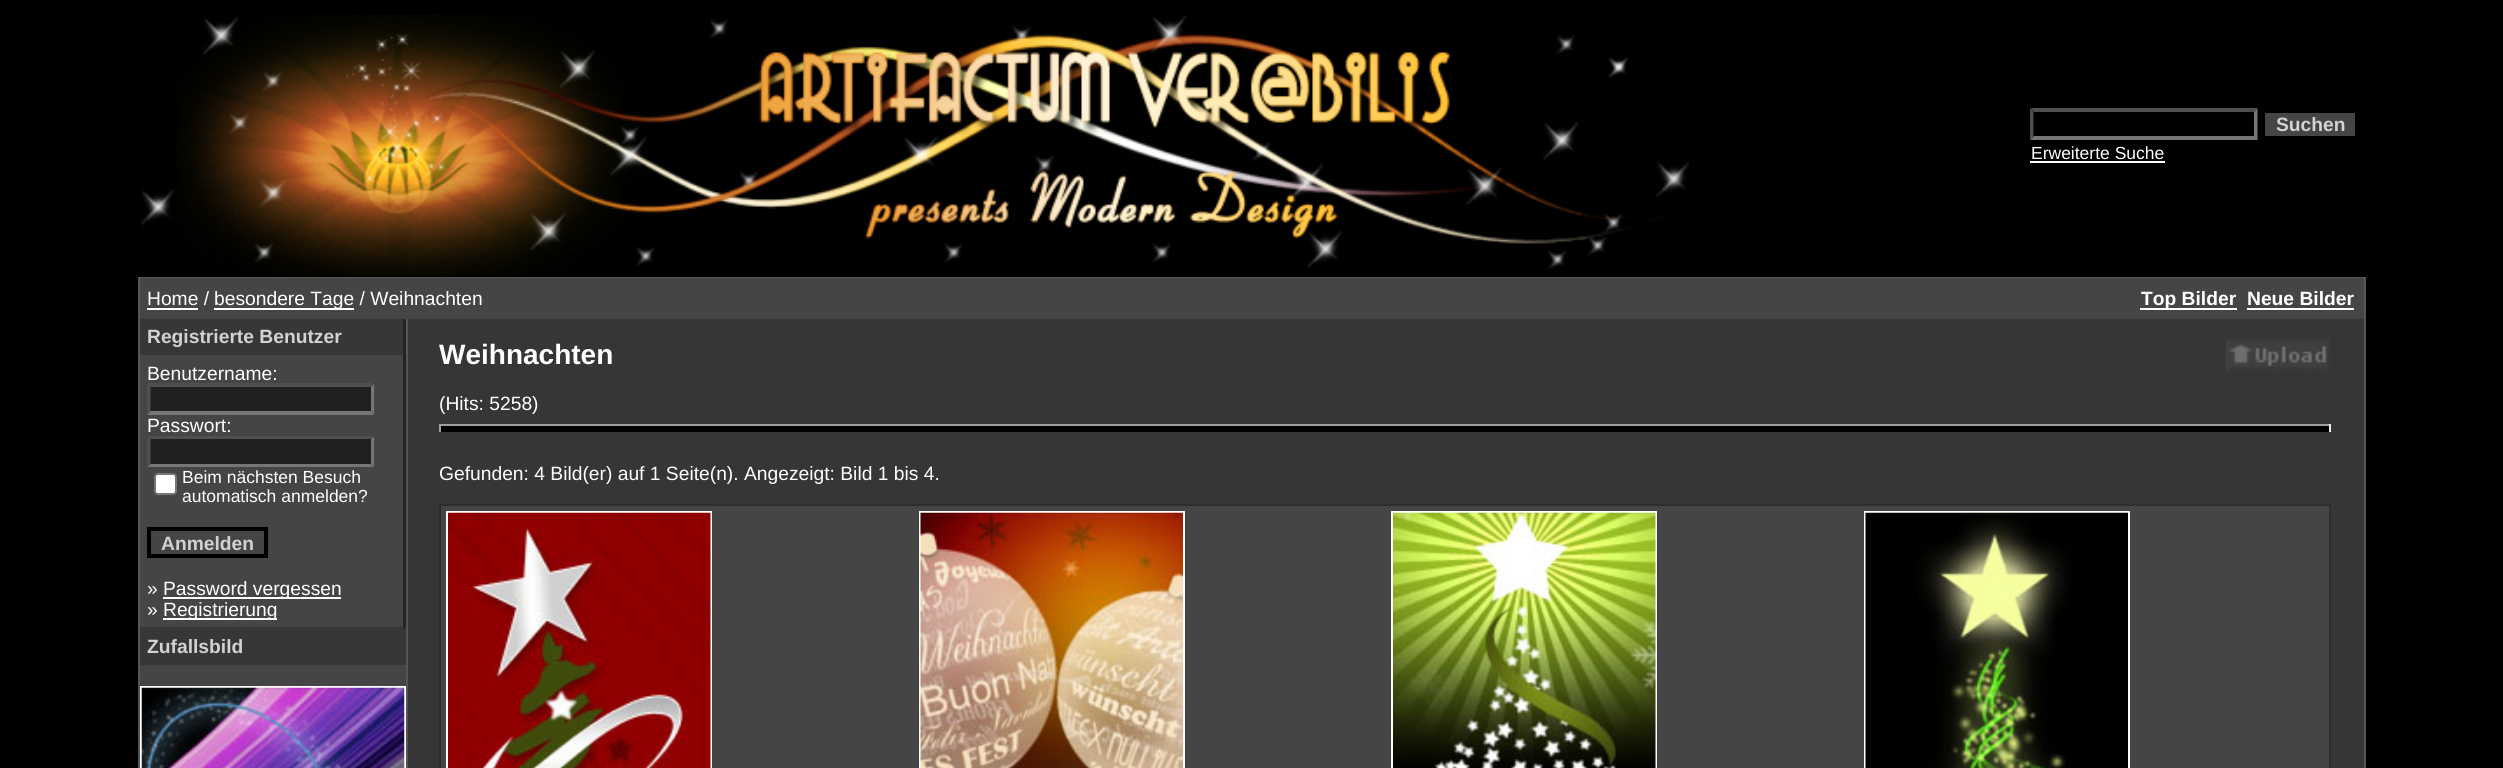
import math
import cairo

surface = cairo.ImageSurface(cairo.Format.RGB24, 2503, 768)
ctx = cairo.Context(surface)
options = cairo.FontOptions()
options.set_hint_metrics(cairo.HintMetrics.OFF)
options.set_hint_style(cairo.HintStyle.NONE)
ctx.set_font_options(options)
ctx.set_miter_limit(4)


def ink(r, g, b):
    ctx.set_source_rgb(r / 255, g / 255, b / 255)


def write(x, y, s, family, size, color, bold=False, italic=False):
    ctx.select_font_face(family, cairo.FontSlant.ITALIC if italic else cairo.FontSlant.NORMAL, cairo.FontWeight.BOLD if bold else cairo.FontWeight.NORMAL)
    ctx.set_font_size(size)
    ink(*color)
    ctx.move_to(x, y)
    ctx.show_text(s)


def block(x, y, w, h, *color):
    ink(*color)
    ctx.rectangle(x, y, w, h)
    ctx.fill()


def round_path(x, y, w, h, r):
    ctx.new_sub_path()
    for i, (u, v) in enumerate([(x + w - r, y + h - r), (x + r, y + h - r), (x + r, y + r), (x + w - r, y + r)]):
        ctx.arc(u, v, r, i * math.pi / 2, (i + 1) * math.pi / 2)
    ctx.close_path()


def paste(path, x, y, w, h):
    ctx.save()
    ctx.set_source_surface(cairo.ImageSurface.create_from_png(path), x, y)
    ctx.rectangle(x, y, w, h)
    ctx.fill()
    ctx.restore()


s1 = dict(family="Liberation Sans", size=19.25, color=(210, 210, 210), bold=True)
s2 = dict(family="Liberation Sans", size=17.5, color=(255, 255, 255))
s3 = dict(family="Liberation Sans", size=19.25, color=(255, 255, 255))
s4 = dict(family="Liberation Sans", size=19.25, color=(255, 255, 255), bold=True)
s5 = dict(family="Liberation Sans", size=28, color=(255, 255, 255), bold=True)

ink(0, 0, 0)
ctx.paint()
paste("pic1.png", 140, 14, 1550, 263)
ink(79, 79, 79)
ctx.new_path()
ctx.move_to(2030, 108)
ctx.line_to(2258, 108)
ctx.line_to(2254, 112)
ctx.line_to(2034, 112)
ctx.close_path()
ctx.fill()
ink(118, 118, 118)
ctx.new_path()
ctx.move_to(2257.5, 108.5)
ctx.line_to(2257.5, 140)
ctx.line_to(2254, 136.5)
ctx.line_to(2254, 112)
ctx.close_path()
ctx.fill()
ctx.new_path()
ctx.move_to(2258, 140)
ctx.line_to(2030, 140)
ctx.line_to(2034, 136)
ctx.line_to(2254, 136)
ctx.close_path()
ctx.fill()
ink(79, 79, 79)
ctx.new_path()
ctx.move_to(2030, 140)
ctx.line_to(2030, 108.5)
ctx.line_to(2033.5, 112)
ctx.line_to(2033.5, 136.5)
ctx.close_path()
ctx.fill()
block(2265, 113, 90, 23, 69, 69, 69)
write(2276, 131, "Suchen", **s1)
write(2031, 159, "Erweiterte Suche", **s2)
block(2030, 161, 135, 2, 255, 255, 255)
block(138, 277, 2228, 491, 85, 85, 85)
block(408, 319, 1956, 449, 54, 54, 54)
block(140, 278, 2224, 41, 69, 69, 69)
write(147, 305, "Home /", **s3)
block(147, 308, 51, 2, 255, 255, 255)
block(214, 308, 140, 2, 255, 255, 255)
write(214, 305, "besondere Tage / Weihnachten", **s3)
block(2140, 308, 97, 2, 255, 255, 255)
write(2141, 305, "Top Bilder", **s4)
write(2247, 305, "Neue Bilder", **s4)
block(2247, 308, 107, 2, 255, 255, 255)
block(403, 319, 3, 309, 36, 36, 36)
block(140, 319, 263, 35, 55, 55, 55)
write(147, 343, "Registrierte Benutzer", **s1)
block(140, 354, 263, 1, 54, 54, 54)
block(140, 355, 263, 272, 69, 69, 69)
write(147, 380, "Benutzername:", **s3)
block(147, 383, 228, 32, 32, 32, 32)
ink(79, 79, 79)
ctx.new_path()
ctx.move_to(147, 383)
ctx.line_to(374, 383)
ctx.line_to(371, 387)
ctx.line_to(150, 387)
ctx.close_path()
ctx.fill()
ink(118, 118, 118)
ctx.new_path()
ctx.move_to(374.5, 383)
ctx.line_to(374.5, 415)
ctx.line_to(371, 411)
ctx.line_to(371, 387)
ctx.close_path()
ctx.fill()
ctx.new_path()
ctx.move_to(374, 415)
ctx.line_to(147, 415)
ctx.line_to(150, 411)
ctx.line_to(371, 411)
ctx.close_path()
ctx.fill()
ink(79, 79, 79)
ctx.new_path()
ctx.move_to(147, 415)
ctx.line_to(147, 383)
ctx.line_to(150.5, 387)
ctx.line_to(150.5, 411)
ctx.close_path()
ctx.fill()
write(147, 432, "Passwort:", **s3)
block(147, 436, 228, 31, 32, 32, 32)
ink(79, 79, 79)
ctx.new_path()
ctx.move_to(147, 436)
ctx.line_to(374, 436)
ctx.line_to(371, 439)
ctx.line_to(150, 439)
ctx.close_path()
ctx.fill()
ink(118, 118, 118)
ctx.new_path()
ctx.move_to(374.5, 436)
ctx.line_to(374.5, 467)
ctx.line_to(371, 464)
ctx.line_to(371, 439)
ctx.close_path()
ctx.fill()
ctx.new_path()
ctx.move_to(374, 467)
ctx.line_to(147, 467)
ctx.line_to(150, 464)
ctx.line_to(371, 464)
ctx.close_path()
ctx.fill()
ink(79, 79, 79)
ctx.new_path()
ctx.move_to(147, 467)
ctx.line_to(147, 436)
ctx.line_to(150.5, 439)
ctx.line_to(150.5, 464)
ctx.close_path()
ctx.fill()
ink(255, 255, 255)
round_path(155, 474, 21, 20, 3)
ctx.fill_preserve()
ink(118, 118, 118)
ctx.stroke()
write(182, 483, "Beim nächsten Besuch", **s2)
write(182, 502, "automatisch anmelden?", **s2)
ctx.rectangle(149, 529, 117, 27)
ink(0, 0, 0)
ctx.set_line_width(4)
ctx.stroke()
write(161, 550, "Anmelden", **s1)
write(147, 595, "»", **s3)
block(163, 597, 178, 2, 255, 255, 255)
write(163, 595, "Password vergessen", **s3)
write(147, 616, "»", **s3)
block(163, 618, 114, 2, 255, 255, 255)
write(163, 616, "Registrierung", **s3)
block(140, 627, 263, 1, 54, 54, 54)
block(140, 628, 266, 35, 55, 55, 55)
write(147, 653, "Zufallsbild", **s1)
block(140, 663, 266, 2, 54, 54, 54)
block(140, 665, 266, 21, 69, 69, 69)
ctx.rectangle(141, 687, 264, 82)
ink(255, 255, 255)
ctx.set_line_width(2)
ctx.stroke()
paste("pic2.png", 141, 687, 264, 81)
write(439, 364, "Weihnachten", **s5)
paste("pic3.png", 2226, 339, 104, 32)
write(439, 410, "(Hits: 5258)", **s3)
block(439, 426, 1892, 6, 0, 0, 0)
block(439, 424, 1892, 2, 159, 159, 159)
block(2329, 424, 2, 8, 238, 238, 238)
block(439, 424, 2, 8, 159, 159, 159)
write(439, 480, "Gefunden: 4 Bild(er) auf 1 Seite(n). Angezeigt: Bild 1 bis 4.", **s3)
block(439, 504, 1892, 264, 46, 46, 46)
block(441, 506, 1888, 262, 69, 69, 69)
ctx.rectangle(447, 512, 264, 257)
ink(255, 255, 255)
ctx.stroke()
paste("pic4.png", 448, 512, 263, 256)
ctx.rectangle(920, 512, 264, 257)
ctx.stroke()
paste("pic5.png", 920, 512, 263, 256)
ctx.rectangle(1392, 512, 264, 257)
ctx.stroke()
paste("pic6.png", 1393, 512, 263, 256)
ctx.rectangle(1865, 512, 264, 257)
ctx.stroke()
paste("pic7.png", 1865, 512, 263, 256)
surface.write_to_png("screenshot.png")
